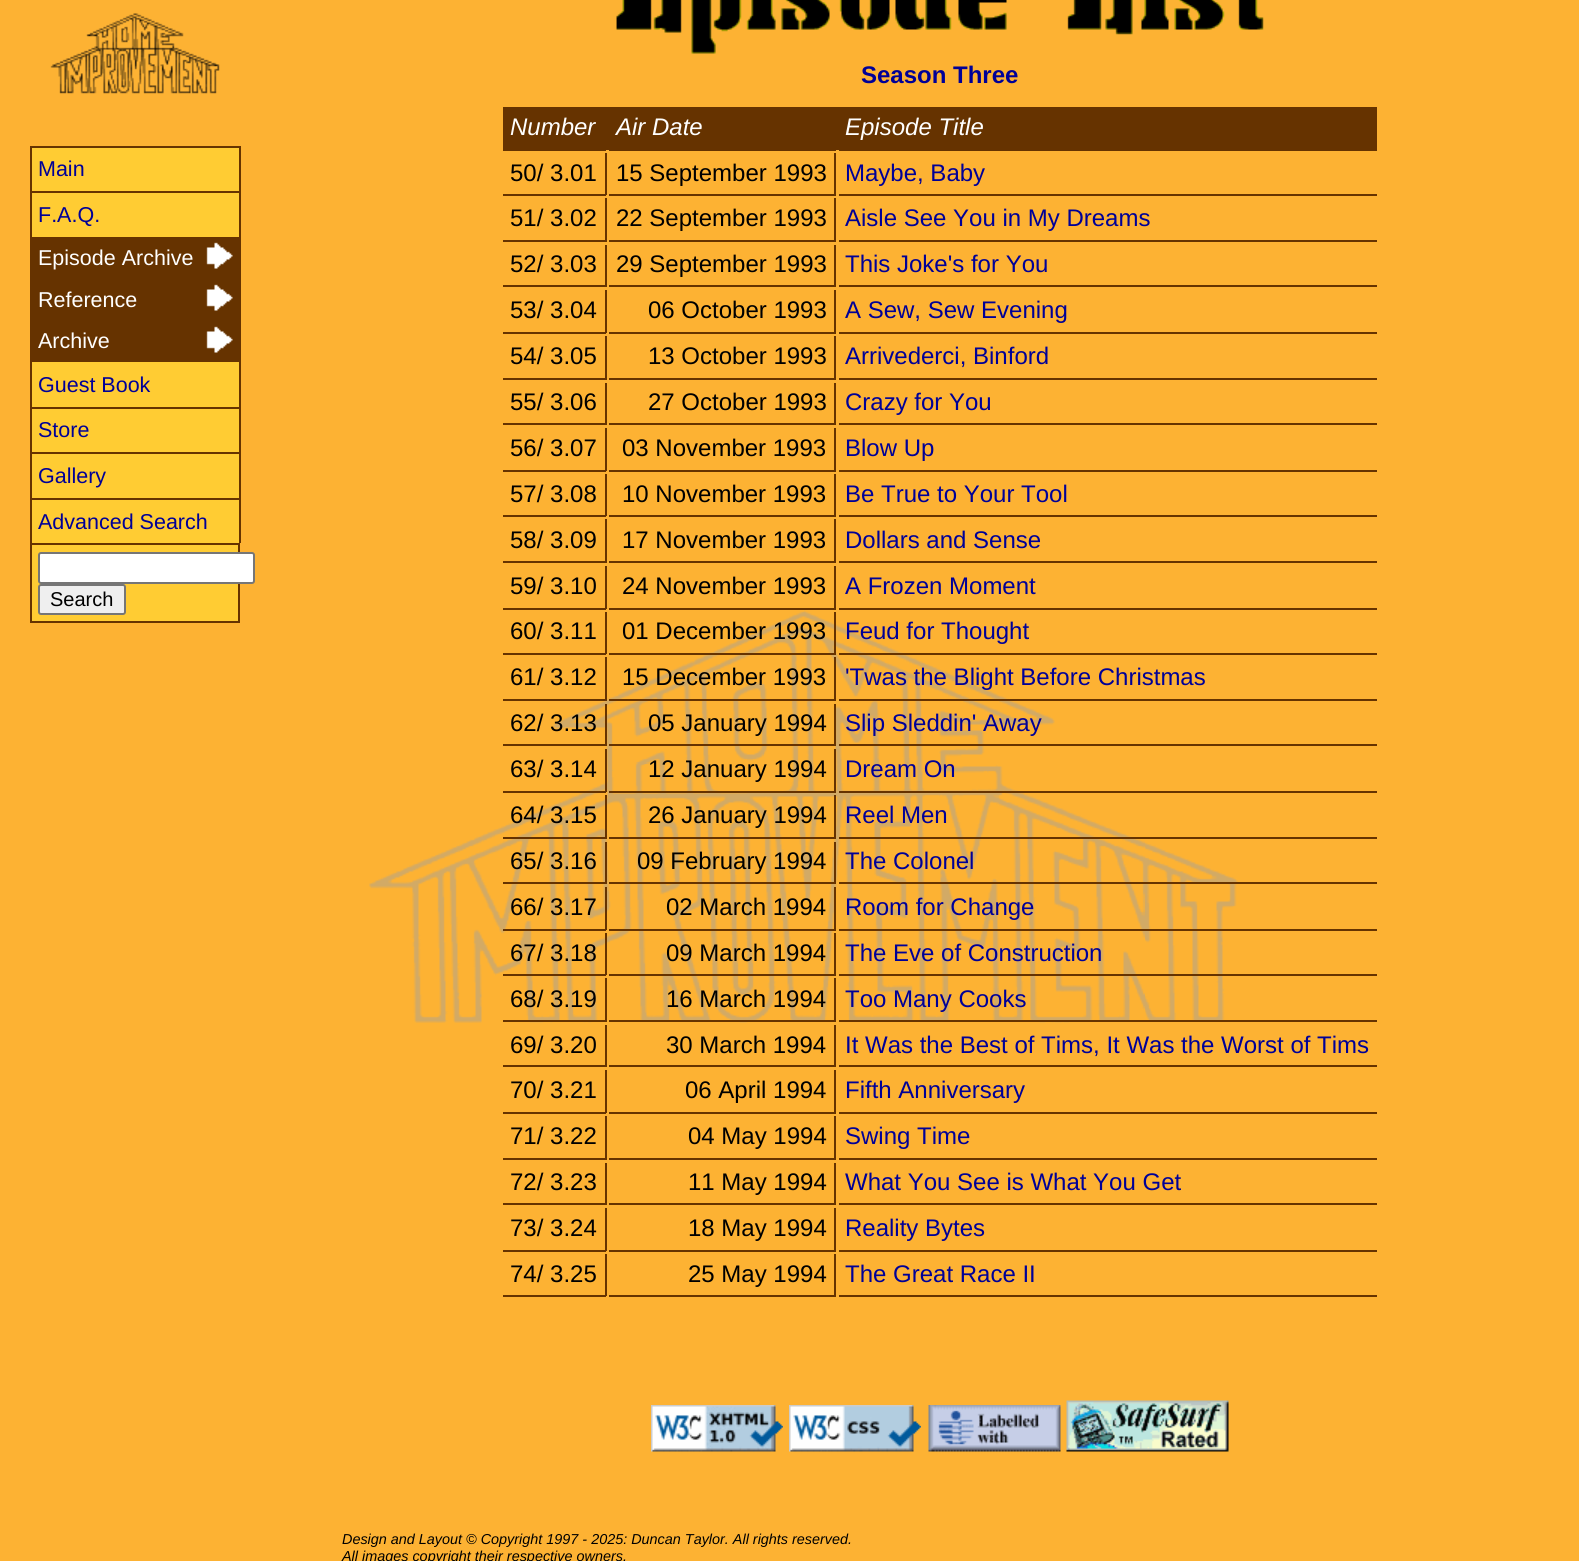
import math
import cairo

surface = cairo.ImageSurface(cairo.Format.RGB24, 1579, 1561)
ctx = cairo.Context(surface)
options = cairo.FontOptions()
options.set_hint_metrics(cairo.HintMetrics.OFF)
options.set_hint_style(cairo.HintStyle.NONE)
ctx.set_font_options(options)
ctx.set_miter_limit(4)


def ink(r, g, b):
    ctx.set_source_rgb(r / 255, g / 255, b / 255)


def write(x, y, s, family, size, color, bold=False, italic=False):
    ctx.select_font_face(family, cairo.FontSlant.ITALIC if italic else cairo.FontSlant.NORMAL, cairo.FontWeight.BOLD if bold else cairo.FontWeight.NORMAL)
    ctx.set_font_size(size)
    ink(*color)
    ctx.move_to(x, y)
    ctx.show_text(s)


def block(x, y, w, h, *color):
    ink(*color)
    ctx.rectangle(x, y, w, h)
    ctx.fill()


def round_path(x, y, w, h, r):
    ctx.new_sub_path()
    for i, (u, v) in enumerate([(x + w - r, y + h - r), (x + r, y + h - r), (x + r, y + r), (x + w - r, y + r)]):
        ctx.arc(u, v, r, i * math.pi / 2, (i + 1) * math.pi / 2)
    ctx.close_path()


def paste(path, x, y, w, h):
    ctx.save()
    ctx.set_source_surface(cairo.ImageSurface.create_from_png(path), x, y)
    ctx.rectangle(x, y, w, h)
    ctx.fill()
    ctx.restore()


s1 = dict(family="Liberation Sans", size=21.5, color=(0, 0, 151))
s2 = dict(family="Liberation Sans", size=21.5, color=(255, 255, 255))
s3 = dict(family="Liberation Sans", size=20, color=(0, 0, 0))
s4 = dict(family="Liberation Sans", size=24, color=(0, 0, 151), bold=True)
s5 = dict(family="Liberation Sans", size=24, color=(255, 255, 255), italic=True)
s6 = dict(family="Liberation Sans", size=24, color=(0, 0, 0))
s7 = dict(family="Liberation Sans", size=24, color=(0, 0, 151))
s8 = dict(family="Liberation Sans", size=14.4, color=(0, 0, 0), italic=True)

ink(253, 178, 51)
ctx.paint()
paste("pic1.png", 369, 610, 869, 413)
paste("pic2.png", 50, 13, 170, 81)
block(32, 148, 207, 43, 255, 204, 51)
block(30, 146, 210, 2, 102, 51, 0)
block(239, 146, 2, 45, 102, 51, 0)
block(30, 146, 2, 45, 102, 51, 0)
write(38, 176, "Main", **s1)
block(32, 193, 207, 44, 255, 204, 51)
block(30, 191, 210, 2, 102, 51, 0)
block(239, 191, 2, 46, 102, 51, 0)
block(30, 191, 2, 46, 102, 51, 0)
write(38, 222, "F.A.Q.", **s1)
block(30, 237, 211, 41, 102, 51, 0)
paste("pic3.png", 206, 242, 27, 27)
write(38, 265, "Episode Archive", **s2)
block(30, 278, 211, 42, 102, 51, 0)
paste("pic3.png", 206, 284, 27, 27)
write(38, 307, "Reference", **s2)
block(30, 320, 211, 40, 102, 51, 0)
paste("pic3.png", 206, 326, 27, 27)
write(38, 348, "Archive", **s2)
block(32, 362, 207, 45, 255, 204, 51)
block(30, 360, 210, 2, 102, 51, 0)
block(239, 360, 2, 47, 102, 51, 0)
block(30, 360, 2, 47, 102, 51, 0)
write(38, 392, "Guest Book", **s1)
block(32, 409, 207, 43, 255, 204, 51)
block(30, 407, 210, 2, 102, 51, 0)
block(239, 407, 2, 45, 102, 51, 0)
block(30, 407, 2, 45, 102, 51, 0)
write(38, 437, "Store", **s1)
block(32, 454, 207, 44, 255, 204, 51)
block(30, 452, 210, 2, 102, 51, 0)
block(239, 452, 2, 46, 102, 51, 0)
block(30, 452, 2, 46, 102, 51, 0)
write(38, 483, "Gallery", **s1)
block(32, 500, 207, 43, 255, 204, 51)
block(30, 498, 210, 2, 102, 51, 0)
block(239, 498, 2, 45, 102, 51, 0)
block(30, 498, 2, 45, 102, 51, 0)
write(38, 529, "Advanced Search", **s1)
ink(255, 204, 51)
ctx.rectangle(31, 544, 208, 78)
ctx.fill_preserve()
ink(102, 51, 0)
ctx.stroke()
ink(255, 255, 255)
round_path(39, 553, 215, 30, 2)
ctx.fill_preserve()
ink(118, 118, 118)
ctx.stroke()
ink(239, 239, 239)
round_path(39, 585, 86, 29, 2)
ctx.fill_preserve()
ink(118, 118, 118)
ctx.stroke()
write(50, 606, "Search", **s3)
paste("pic4.png", 616, 0, 648, 54)
write(861, 83, "Season Three", **s4)
block(503, 107, 874, 43, 102, 51, 0)
block(503, 150, 103, 1, 102, 51, 0)
write(510, 135, "Number", **s5)
block(609, 150, 227, 1, 102, 51, 0)
write(616, 135, "Air Date", **s5)
block(839, 150, 538, 1, 102, 51, 0)
write(845, 135, "Episode Title", **s5)
block(605, 153, 2, 42, 102, 51, 0)
block(503, 194, 103, 2, 102, 51, 0)
write(510, 181, "50/ 3.01", **s6)
block(834, 153, 2, 42, 102, 51, 0)
block(609, 194, 227, 2, 102, 51, 0)
write(616, 181, "15 September 1993", **s6)
block(839, 194, 538, 2, 102, 51, 0)
write(845, 181, "Maybe, Baby", **s7)
block(605, 198, 2, 44, 102, 51, 0)
block(503, 240, 103, 2, 102, 51, 0)
write(510, 226, "51/ 3.02", **s6)
block(834, 198, 2, 44, 102, 51, 0)
block(609, 240, 227, 2, 102, 51, 0)
write(616, 226, "22 September 1993", **s6)
block(839, 240, 538, 2, 102, 51, 0)
write(845, 226, "Aisle See You in My Dreams", **s7)
block(605, 245, 2, 42, 102, 51, 0)
block(503, 285, 103, 2, 102, 51, 0)
write(510, 272, "52/ 3.03", **s6)
block(834, 245, 2, 42, 102, 51, 0)
block(609, 285, 227, 2, 102, 51, 0)
write(616, 272, "29 September 1993", **s6)
block(839, 285, 538, 2, 102, 51, 0)
write(845, 272, "This Joke's for You", **s7)
block(605, 290, 2, 43, 102, 51, 0)
block(503, 332, 103, 2, 102, 51, 0)
write(510, 318, "53/ 3.04", **s6)
block(834, 290, 2, 43, 102, 51, 0)
block(609, 332, 227, 2, 102, 51, 0)
write(648, 318, "06 October 1993", **s6)
block(839, 332, 538, 2, 102, 51, 0)
write(845, 318, "A Sew, Sew Evening", **s7)
block(605, 336, 2, 44, 102, 51, 0)
block(503, 378, 103, 2, 102, 51, 0)
write(510, 364, "54/ 3.05", **s6)
block(834, 336, 2, 44, 102, 51, 0)
block(609, 378, 227, 2, 102, 51, 0)
write(648, 364, "13 October 1993", **s6)
block(839, 378, 538, 2, 102, 51, 0)
write(845, 364, "Arrivederci, Binford", **s7)
block(605, 383, 2, 42, 102, 51, 0)
block(503, 423, 103, 2, 102, 51, 0)
write(510, 410, "55/ 3.06", **s6)
block(834, 383, 2, 42, 102, 51, 0)
block(609, 423, 227, 2, 102, 51, 0)
write(648, 410, "27 October 1993", **s6)
block(839, 423, 538, 2, 102, 51, 0)
write(845, 410, "Crazy for You", **s7)
block(605, 428, 2, 43, 102, 51, 0)
block(503, 470, 103, 2, 102, 51, 0)
write(510, 456, "56/ 3.07", **s6)
block(834, 428, 2, 43, 102, 51, 0)
block(609, 470, 227, 2, 102, 51, 0)
write(622, 456, "03 November 1993", **s6)
block(839, 470, 538, 2, 102, 51, 0)
write(845, 456, "Blow Up", **s7)
block(605, 474, 2, 42, 102, 51, 0)
block(503, 515, 103, 2, 102, 51, 0)
write(510, 502, "57/ 3.08", **s6)
block(834, 474, 2, 42, 102, 51, 0)
block(609, 515, 227, 2, 102, 51, 0)
write(622, 502, "10 November 1993", **s6)
block(839, 515, 538, 2, 102, 51, 0)
write(845, 502, "Be True to Your Tool", **s7)
block(605, 519, 2, 44, 102, 51, 0)
block(503, 561, 103, 2, 102, 51, 0)
write(510, 548, "58/ 3.09", **s6)
block(834, 519, 2, 44, 102, 51, 0)
block(609, 561, 227, 2, 102, 51, 0)
write(622, 548, "17 November 1993", **s6)
block(839, 561, 538, 2, 102, 51, 0)
write(845, 548, "Dollars and Sense", **s7)
block(605, 566, 2, 43, 102, 51, 0)
block(503, 608, 103, 2, 102, 51, 0)
write(510, 594, "59/ 3.10", **s6)
block(834, 566, 2, 43, 102, 51, 0)
block(609, 608, 227, 2, 102, 51, 0)
write(622, 594, "24 November 1993", **s6)
block(839, 608, 538, 2, 102, 51, 0)
write(845, 594, "A Frozen Moment", **s7)
block(605, 612, 2, 42, 102, 51, 0)
block(503, 653, 103, 2, 102, 51, 0)
write(510, 639, "60/ 3.11", **s6)
block(834, 612, 2, 42, 102, 51, 0)
block(609, 653, 227, 2, 102, 51, 0)
write(622, 639, "01 December 1993", **s6)
block(839, 653, 538, 2, 102, 51, 0)
write(845, 639, "Feud for Thought", **s7)
block(605, 657, 2, 44, 102, 51, 0)
block(503, 699, 103, 2, 102, 51, 0)
write(510, 685, "61/ 3.12", **s6)
block(834, 657, 2, 44, 102, 51, 0)
block(609, 699, 227, 2, 102, 51, 0)
write(622, 685, "15 December 1993", **s6)
block(839, 699, 538, 2, 102, 51, 0)
write(845, 685, "'Twas the Blight Before Christmas", **s7)
block(605, 704, 2, 42, 102, 51, 0)
block(503, 744, 103, 2, 102, 51, 0)
write(510, 731, "62/ 3.13", **s6)
block(834, 704, 2, 42, 102, 51, 0)
block(609, 744, 227, 2, 102, 51, 0)
write(648, 731, "05 January 1994", **s6)
block(839, 744, 538, 2, 102, 51, 0)
write(845, 731, "Slip Sleddin' Away", **s7)
block(605, 749, 2, 43, 102, 51, 0)
block(503, 791, 103, 2, 102, 51, 0)
write(510, 777, "63/ 3.14", **s6)
block(834, 749, 2, 43, 102, 51, 0)
block(609, 791, 227, 2, 102, 51, 0)
write(648, 777, "12 January 1994", **s6)
block(839, 791, 538, 2, 102, 51, 0)
write(845, 777, "Dream On", **s7)
block(605, 795, 2, 44, 102, 51, 0)
block(503, 837, 103, 2, 102, 51, 0)
write(510, 823, "64/ 3.15", **s6)
block(834, 795, 2, 44, 102, 51, 0)
block(609, 837, 227, 2, 102, 51, 0)
write(648, 823, "26 January 1994", **s6)
block(839, 837, 538, 2, 102, 51, 0)
write(845, 823, "Reel Men", **s7)
block(605, 842, 2, 42, 102, 51, 0)
block(503, 882, 103, 2, 102, 51, 0)
write(510, 869, "65/ 3.16", **s6)
block(834, 842, 2, 42, 102, 51, 0)
block(609, 882, 227, 2, 102, 51, 0)
write(637, 869, "09 February 1994", **s6)
block(839, 882, 538, 2, 102, 51, 0)
write(845, 869, "The Colonel", **s7)
block(605, 887, 2, 43, 102, 51, 0)
block(503, 929, 103, 2, 102, 51, 0)
write(510, 915, "66/ 3.17", **s6)
block(834, 887, 2, 43, 102, 51, 0)
block(609, 929, 227, 2, 102, 51, 0)
write(666, 915, "02 March 1994", **s6)
block(839, 929, 538, 2, 102, 51, 0)
write(845, 915, "Room for Change", **s7)
block(605, 933, 2, 42, 102, 51, 0)
block(503, 974, 103, 2, 102, 51, 0)
write(510, 961, "67/ 3.18", **s6)
block(834, 933, 2, 42, 102, 51, 0)
block(609, 974, 227, 2, 102, 51, 0)
write(666, 961, "09 March 1994", **s6)
block(839, 974, 538, 2, 102, 51, 0)
write(845, 961, "The Eve of Construction", **s7)
block(605, 978, 2, 44, 102, 51, 0)
block(503, 1020, 103, 2, 102, 51, 0)
write(510, 1007, "68/ 3.19", **s6)
block(834, 978, 2, 44, 102, 51, 0)
block(609, 1020, 227, 2, 102, 51, 0)
write(666, 1007, "16 March 1994", **s6)
block(839, 1020, 538, 2, 102, 51, 0)
write(845, 1007, "Too Many Cooks", **s7)
block(605, 1025, 2, 42, 102, 51, 0)
block(503, 1065, 103, 2, 102, 51, 0)
write(510, 1053, "69/ 3.20", **s6)
block(834, 1025, 2, 42, 102, 51, 0)
block(609, 1065, 227, 2, 102, 51, 0)
write(666, 1053, "30 March 1994", **s6)
block(839, 1065, 538, 2, 102, 51, 0)
write(845, 1053, "It Was the Best of Tims, It Was the Worst of Tims", **s7)
block(605, 1070, 2, 43, 102, 51, 0)
block(503, 1112, 103, 2, 102, 51, 0)
write(510, 1098, "70/ 3.21", **s6)
block(834, 1070, 2, 43, 102, 51, 0)
block(609, 1112, 227, 2, 102, 51, 0)
write(685, 1098, "06 April 1994", **s6)
block(839, 1112, 538, 2, 102, 51, 0)
write(845, 1098, "Fifth Anniversary", **s7)
block(605, 1116, 2, 44, 102, 51, 0)
block(503, 1158, 103, 2, 102, 51, 0)
write(510, 1144, "71/ 3.22", **s6)
block(834, 1116, 2, 44, 102, 51, 0)
block(609, 1158, 227, 2, 102, 51, 0)
write(688, 1144, "04 May 1994", **s6)
block(839, 1158, 538, 2, 102, 51, 0)
write(845, 1144, "Swing Time", **s7)
block(605, 1163, 2, 42, 102, 51, 0)
block(503, 1203, 103, 2, 102, 51, 0)
write(510, 1190, "72/ 3.23", **s6)
block(834, 1163, 2, 42, 102, 51, 0)
block(609, 1203, 227, 2, 102, 51, 0)
write(688, 1190, "11 May 1994", **s6)
block(839, 1203, 538, 2, 102, 51, 0)
write(845, 1190, "What You See is What You Get", **s7)
block(605, 1208, 2, 43, 102, 51, 0)
block(503, 1250, 103, 2, 102, 51, 0)
write(510, 1236, "73/ 3.24", **s6)
block(834, 1208, 2, 43, 102, 51, 0)
block(609, 1250, 227, 2, 102, 51, 0)
write(688, 1236, "18 May 1994", **s6)
block(839, 1250, 538, 2, 102, 51, 0)
write(845, 1236, "Reality Bytes", **s7)
block(605, 1254, 2, 42, 102, 51, 0)
block(503, 1295, 103, 2, 102, 51, 0)
write(510, 1282, "74/ 3.25", **s6)
block(834, 1254, 2, 42, 102, 51, 0)
block(609, 1295, 227, 2, 102, 51, 0)
write(688, 1282, "25 May 1994", **s6)
block(839, 1295, 538, 2, 102, 51, 0)
write(845, 1282, "The Great Race II", **s7)
paste("pic5.png", 651, 1405, 132, 47)
paste("pic6.png", 789, 1405, 132, 47)
paste("pic7.png", 928, 1405, 133, 47)
paste("pic8.png", 1066, 1400, 163, 52)
write(342, 1544, "Design and Layout © Copyright 1997 - 2025: Duncan Taylor. All rights reserved.", **s8)
write(342, 1561, "All images copyright their respective owners.", **s8)
surface.write_to_png("screenshot.png")
